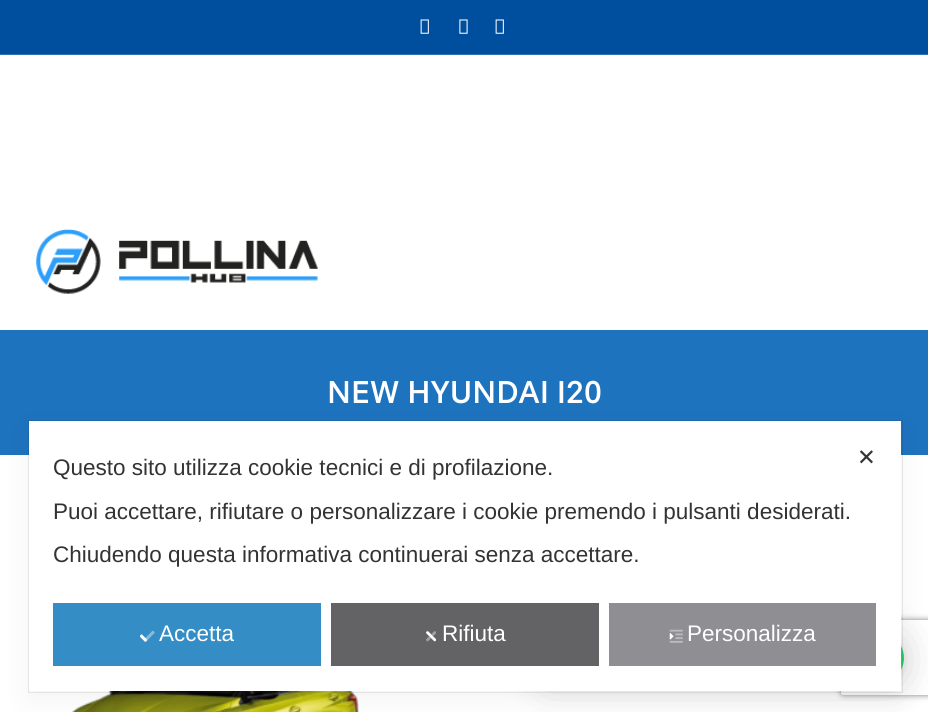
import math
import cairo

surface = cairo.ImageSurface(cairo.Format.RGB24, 928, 712)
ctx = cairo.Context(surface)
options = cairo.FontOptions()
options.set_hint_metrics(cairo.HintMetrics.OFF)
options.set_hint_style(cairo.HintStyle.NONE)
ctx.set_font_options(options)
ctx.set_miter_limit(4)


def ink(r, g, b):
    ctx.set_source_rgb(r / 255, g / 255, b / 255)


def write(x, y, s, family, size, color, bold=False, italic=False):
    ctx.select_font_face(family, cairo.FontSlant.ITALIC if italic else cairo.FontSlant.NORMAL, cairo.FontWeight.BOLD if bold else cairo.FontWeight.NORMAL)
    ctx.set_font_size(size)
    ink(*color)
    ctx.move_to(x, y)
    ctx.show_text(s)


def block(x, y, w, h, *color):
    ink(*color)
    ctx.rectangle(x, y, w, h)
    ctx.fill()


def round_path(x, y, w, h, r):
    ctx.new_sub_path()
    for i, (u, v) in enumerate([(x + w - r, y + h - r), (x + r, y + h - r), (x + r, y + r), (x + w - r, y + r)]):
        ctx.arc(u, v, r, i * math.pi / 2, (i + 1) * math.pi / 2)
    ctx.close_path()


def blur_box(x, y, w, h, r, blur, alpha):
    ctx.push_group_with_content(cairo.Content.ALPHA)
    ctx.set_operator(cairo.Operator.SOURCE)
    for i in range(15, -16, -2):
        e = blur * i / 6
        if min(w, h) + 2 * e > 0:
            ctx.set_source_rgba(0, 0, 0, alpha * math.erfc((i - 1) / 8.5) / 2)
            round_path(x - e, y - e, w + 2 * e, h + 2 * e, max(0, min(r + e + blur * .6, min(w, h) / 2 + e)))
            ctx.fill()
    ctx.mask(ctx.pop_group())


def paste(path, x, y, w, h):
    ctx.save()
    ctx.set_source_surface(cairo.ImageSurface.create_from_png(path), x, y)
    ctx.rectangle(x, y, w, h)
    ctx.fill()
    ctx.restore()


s1 = dict(family="Funnel Sans Medium", size=32.5, color=(255, 255, 255))
s2 = dict(family="Liberation Sans", size=22.5, color=(51, 51, 51))
s3 = dict(family="Liberation Sans", size=22.5, color=(255, 255, 255))
s4 = dict(family="DejaVu Sans", size=22.5, color=(51, 51, 51))

ink(255, 255, 255)
ctx.paint()
block(0, 0, 928, 54, 0, 79, 159)
block(0, 54, 928, 1, 51, 114, 178)
paste("pic1.png", 420, 19, 9, 15)
paste("pic2.png", 459, 19, 9, 15)
paste("pic1.png", 495, 19, 9, 15)
paste("pic3.png", 36, 229, 282, 65)
block(0, 330, 928, 125, 30, 115, 190)
write(327, 403, "NEW HYUNDAI I20", **s1)
paste("pic4.png", 72, 691, 287, 21)
ink(0, 0, 0)
blur_box(536, 635, 368, 50, 25, 20, 0.16)
blur_box(536, 634, 368, 50, 25, 4, 0.06)
ctx.save()
ctx.set_fill_rule(cairo.FillRule.EVEN_ODD)
ctx.new_path()
ctx.move_to(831, 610)
ctx.line_to(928, 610)
ctx.line_to(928, 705)
ctx.line_to(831, 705)
ctx.close_path()
ctx.move_to(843.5, 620)
ctx.line_to(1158.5, 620)
ctx.curve_to(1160, 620, 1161, 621, 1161, 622.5)
ctx.line_to(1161, 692.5)
ctx.curve_to(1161, 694, 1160, 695, 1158.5, 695)
ctx.line_to(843.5, 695)
ctx.curve_to(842, 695, 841, 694, 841, 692.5)
ctx.line_to(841, 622.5)
ctx.curve_to(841, 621, 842, 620, 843.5, 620)
ctx.close_path()
ctx.clip()
ink(128, 128, 128)
blur_box(841, 620, 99, 75, 2.5, 3, 1)
ctx.restore()
ink(37, 211, 102)
round_path(536, 633, 368, 50, 25)
ctx.fill()
ctx.rectangle(28.5, 420.5, 874, 272)
ctx.set_source_rgba(0, 0, 0, 0.08)
ctx.set_line_width(1)
ctx.stroke()
ink(0, 0, 0)
blur_box(29, 429, 872, 270, 0, 15, 0.05)
block(29, 421, 872, 270, 255, 255, 255)
write(53, 475, "Questo sito utilizza cookie tecnici e di profilazione.", **s2)
write(53, 519, "Puoi accettare, rifiutare o personalizzare i cookie premendo i pulsanti desiderati.", **s2)
write(53, 562, "Chiudendo questa informativa continuerai senza accettare.", **s2)
block(53, 603, 268, 63, 52, 142, 197)
paste("pic5.png", 140, 630, 15, 12)
write(159, 641, "Accetta", **s3)
block(331, 603, 268, 63, 99, 99, 102)
paste("pic6.png", 426, 631, 10, 11)
write(442, 641, "Rifiuta", **s3)
block(609, 603, 267, 63, 142, 142, 147)
paste("pic7.png", 669, 629, 14, 14)
write(687, 641, "Personalizza", **s3)
write(857, 465, "✕", **s4)
surface.write_to_png("screenshot.png")
